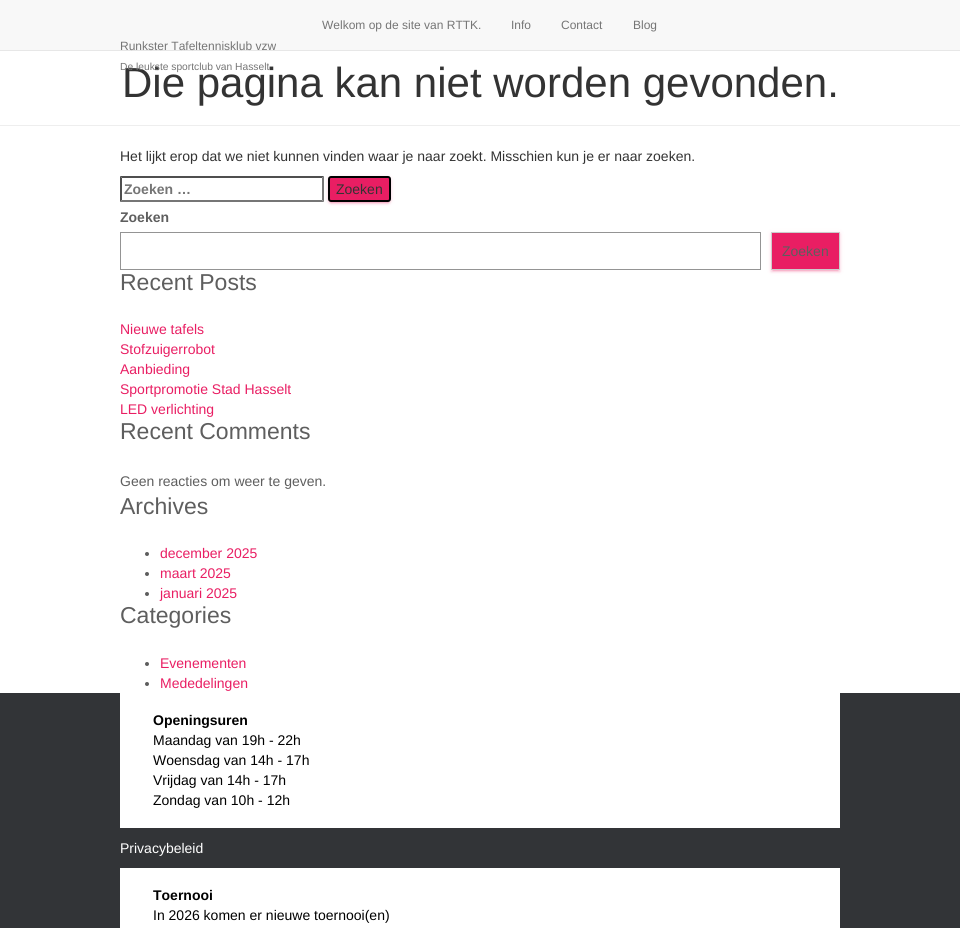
import math
import cairo

surface = cairo.ImageSurface(cairo.Format.RGB24, 960, 928)
ctx = cairo.Context(surface)
options = cairo.FontOptions()
options.set_hint_metrics(cairo.HintMetrics.OFF)
options.set_hint_style(cairo.HintStyle.NONE)
ctx.set_font_options(options)
ctx.set_miter_limit(4)


def ink(r, g, b):
    ctx.set_source_rgb(r / 255, g / 255, b / 255)


def write(x, y, s, family, size, color, bold=False, italic=False):
    ctx.select_font_face(family, cairo.FontSlant.ITALIC if italic else cairo.FontSlant.NORMAL, cairo.FontWeight.BOLD if bold else cairo.FontWeight.NORMAL)
    ctx.set_font_size(size)
    ink(*color)
    ctx.move_to(x, y)
    ctx.show_text(s)


def block(x, y, w, h, *color):
    ink(*color)
    ctx.rectangle(x, y, w, h)
    ctx.fill()


def round_path(x, y, w, h, r):
    ctx.new_sub_path()
    for i, (u, v) in enumerate([(x + w - r, y + h - r), (x + r, y + h - r), (x + r, y + r), (x + w - r, y + r)]):
        ctx.arc(u, v, r, i * math.pi / 2, (i + 1) * math.pi / 2)
    ctx.close_path()


def blur_box(x, y, w, h, r, blur, alpha):
    ctx.push_group_with_content(cairo.Content.ALPHA)
    ctx.set_operator(cairo.Operator.SOURCE)
    for i in range(15, -16, -2):
        e = blur * i / 6
        if min(w, h) + 2 * e > 0:
            ctx.set_source_rgba(0, 0, 0, alpha * math.erfc((i - 1) / 8.5) / 2)
            round_path(x - e, y - e, w + 2 * e, h + 2 * e, max(0, min(r + e + blur * .6, min(w, h) / 2 + e)))
            ctx.fill()
    ctx.mask(ctx.pop_group())


s1 = dict(family="Liberation Sans", size=12, color=(117, 117, 117))
s2 = dict(family="Liberation Sans", size=42, color=(51, 51, 51))
s3 = dict(family="Liberation Sans", size=10.25, color=(117, 117, 117))
s4 = dict(family="Liberation Sans", size=14, color=(51, 51, 51))
s5 = dict(family="Liberation Sans", size=14, color=(117, 117, 117), bold=True)
s6 = dict(family="Liberation Sans", size=14, color=(94, 94, 94), bold=True)
s7 = dict(family="Liberation Sans", size=14, color=(94, 94, 94))
s8 = dict(family="Liberation Sans", size=23, color=(94, 94, 94))
s9 = dict(family="Liberation Sans", size=14, color=(233, 30, 99))
s10 = dict(family="Liberation Sans", size=14, color=(0, 0, 0), bold=True)
s11 = dict(family="Liberation Sans", size=14, color=(0, 0, 0))
s12 = dict(family="Liberation Sans", size=14, color=(255, 255, 255))

ink(255, 255, 255)
ctx.paint()
block(0, 0, 960, 50, 248, 248, 248)
block(0, 50, 960, 1, 231, 231, 231)
write(322, 29, "Welkom op de site van RTTK.", **s1)
write(511, 29, "Info", **s1)
write(561, 29, "Contact", **s1)
write(633, 29, "Blog", **s1)
write(120, 50, "Runkster Tafeltennisklub vzw", **s1)
write(122, 97, "Die pagina kan niet worden gevonden.", **s2)
write(120, 70, "De leukste sportclub van Hasselt", **s3)
block(0, 125, 960, 1, 238, 238, 238)
write(120, 161, "Het lijkt erop dat we niet kunnen vinden waar je naar zoekt. Misschien kun je er naar zoeken.", **s4)
ink(79, 79, 79)
ctx.new_path()
ctx.move_to(120, 176)
ctx.line_to(324, 176)
ctx.line_to(322, 178)
ctx.line_to(122, 178)
ctx.close_path()
ctx.fill()
ink(118, 118, 118)
ctx.new_path()
ctx.move_to(324, 176)
ctx.line_to(324, 202)
ctx.line_to(322, 200)
ctx.line_to(322, 178)
ctx.close_path()
ctx.fill()
ctx.new_path()
ctx.move_to(324, 202)
ctx.line_to(120, 202)
ctx.line_to(122, 200)
ctx.line_to(322, 200)
ctx.close_path()
ctx.fill()
ink(79, 79, 79)
ctx.new_path()
ctx.move_to(120, 202)
ctx.line_to(120, 176)
ctx.line_to(122, 178)
ctx.line_to(122, 200)
ctx.close_path()
ctx.fill()
write(124, 194, "Zoeken …", **s5)
ink(233, 30, 99)
blur_box(328, 177, 63, 26, 3, 2.5, 0.12)
blur_box(330, 181, 59, 22, 1, 0.5, 0.2)
blur_box(328, 178, 63, 26, 3, 1, 0.14)
ink(233, 30, 99)
round_path(329, 177, 61, 24, 2)
ctx.fill_preserve()
ink(0, 0, 0)
ctx.stroke()
write(336, 194, "Zoeken", **s4)
write(120, 222, "Zoeken", **s6)
ctx.rectangle(120.5, 232.5, 640, 37)
ink(148, 148, 148)
ctx.set_line_width(1)
ctx.stroke()
ink(233, 30, 99)
blur_box(771, 233, 69, 38, 0, 2.5, 0.12)
blur_box(773, 237, 65, 34, 0, 0.5, 0.2)
blur_box(771, 234, 69, 38, 0, 1, 0.14)
ink(233, 30, 99)
ctx.rectangle(771.5, 232.5, 68, 37)
ctx.fill_preserve()
ink(204, 204, 204)
ctx.stroke()
write(782, 256, "Zoeken", **s7)
write(120, 290, "Recent Posts", **s8)
write(120, 334, "Nieuwe tafels", **s9)
write(120, 354, "Stofzuigerrobot", **s9)
write(120, 374, "Aanbieding", **s9)
write(120, 394, "Sportpromotie Stad Hasselt", **s9)
write(120, 414, "LED verlichting", **s9)
write(120, 439, "Recent Comments", **s8)
write(120, 486, "Geen reacties om weer te geven.", **s7)
write(120, 514, "Archives", **s8)
ctx.new_path()
ctx.arc(147, 554, 2, 0, 2 * math.pi)
ctx.fill()
write(160, 558, "december 2025", **s9)
ink(94, 94, 94)
ctx.new_path()
ctx.arc(147, 574, 2, 0, 2 * math.pi)
ctx.fill()
write(160, 578, "maart 2025", **s9)
ink(94, 94, 94)
ctx.new_path()
ctx.arc(147, 594, 2, 0, 2 * math.pi)
ctx.fill()
write(160, 598, "januari 2025", **s9)
write(120, 623, "Categories", **s8)
ctx.new_path()
ctx.arc(147, 664, 2, 0, 2 * math.pi)
ctx.fill()
write(160, 668, "Evenementen", **s9)
ink(94, 94, 94)
ctx.new_path()
ctx.arc(147, 684, 2, 0, 2 * math.pi)
ctx.fill()
write(160, 688, "Mededelingen", **s9)
block(0, 693, 960, 235, 50, 52, 55)
block(120, 693, 720, 135, 255, 255, 255)
write(153, 725, "Openingsuren", **s10)
write(153, 745, "Maandag van 19h - 22h", **s11)
write(153, 765, "Woensdag van 14h - 17h", **s11)
write(153, 785, "Vrijdag van 14h - 17h", **s11)
write(153, 805, "Zondag van 10h - 12h", **s11)
write(120, 853, "Privacybeleid", **s12)
block(120, 868, 720, 60, 255, 255, 255)
write(153, 900, "Toernooi", **s10)
write(153, 920, "In 2026 komen er nieuwe toernooi(en)", **s11)
surface.write_to_png("screenshot.png")
